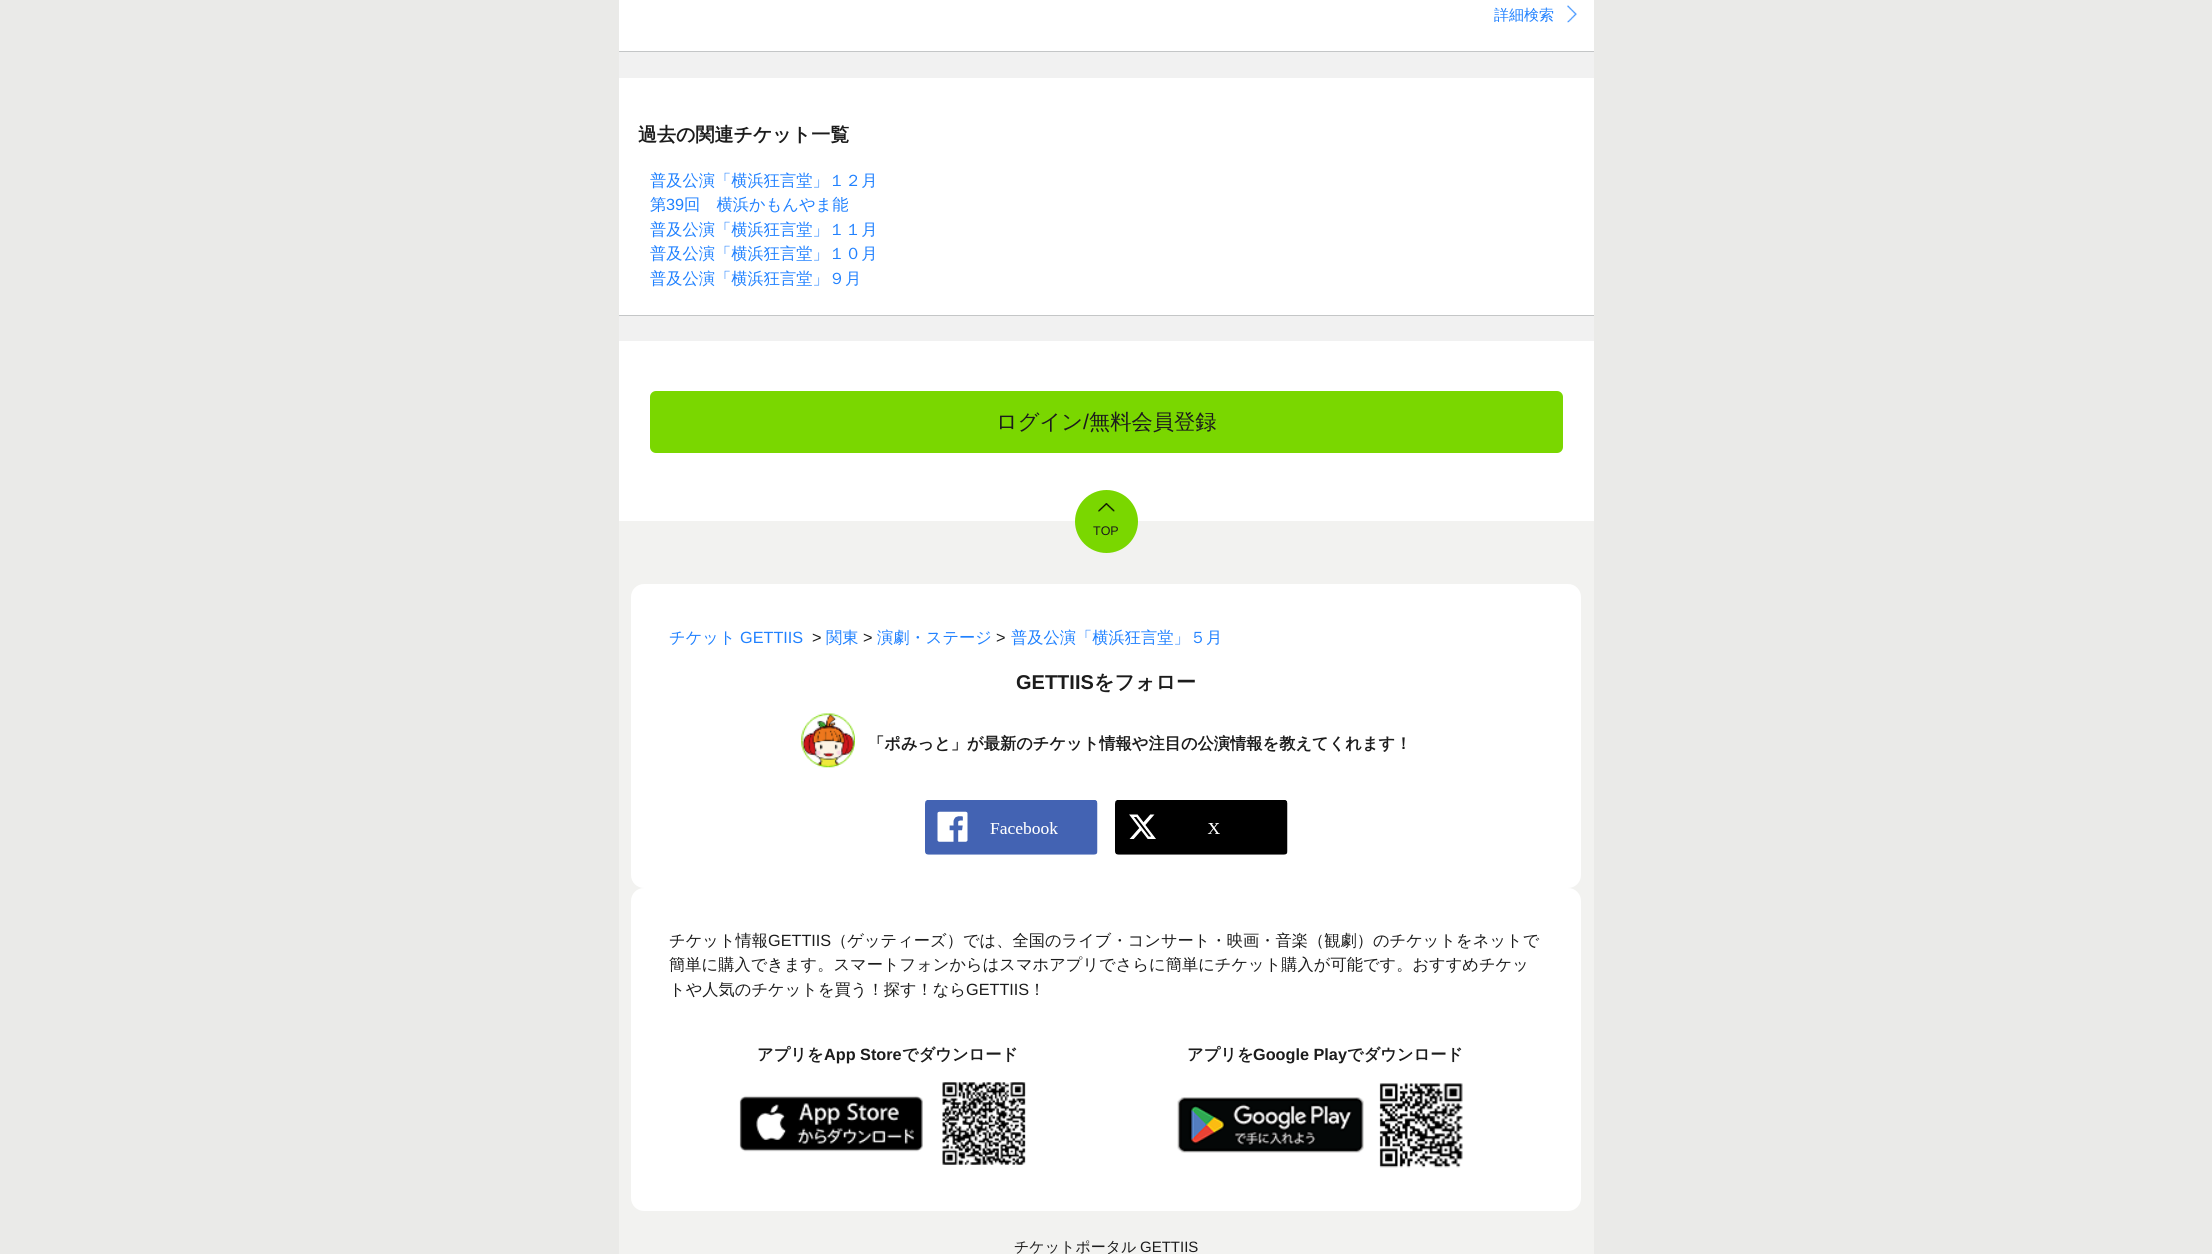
import math
import cairo

surface = cairo.ImageSurface(cairo.Format.RGB24, 2212, 1254)
ctx = cairo.Context(surface)
options = cairo.FontOptions()
options.set_hint_metrics(cairo.HintMetrics.OFF)
options.set_hint_style(cairo.HintStyle.NONE)
ctx.set_font_options(options)
ctx.set_miter_limit(4)


def ink(r, g, b):
    ctx.set_source_rgb(r / 255, g / 255, b / 255)


def write(x, y, s, family, size, color, bold=False, italic=False):
    ctx.select_font_face(family, cairo.FontSlant.ITALIC if italic else cairo.FontSlant.NORMAL, cairo.FontWeight.BOLD if bold else cairo.FontWeight.NORMAL)
    ctx.set_font_size(size)
    ink(*color)
    ctx.move_to(x, y)
    ctx.show_text(s)


def block(x, y, w, h, *color):
    ink(*color)
    ctx.rectangle(x, y, w, h)
    ctx.fill()


def round_path(x, y, w, h, r):
    ctx.new_sub_path()
    for i, (u, v) in enumerate([(x + w - r, y + h - r), (x + r, y + h - r), (x + r, y + r), (x + w - r, y + r)]):
        ctx.arc(u, v, r, i * math.pi / 2, (i + 1) * math.pi / 2)
    ctx.close_path()


def paste(path, x, y, w, h):
    ctx.save()
    ctx.set_source_surface(cairo.ImageSurface.create_from_png(path), x, y)
    ctx.rectangle(x, y, w, h)
    ctx.fill()
    ctx.restore()


s1 = dict(family="WenQuanYi Zen Hei Medium", size=15, color=(32, 129, 255))
s2 = dict(family="WenQuanYi Zen Hei", size=19, color=(28, 28, 28), bold=True)
s3 = dict(family="WenQuanYi Zen Hei Medium", size=16.25, color=(32, 129, 255))
s4 = dict(family="Liberation Sans", size=16.25, color=(32, 129, 255))
s5 = dict(family="WenQuanYi Zen Hei Medium", size=21.25, color=(28, 28, 28))
s6 = dict(family="Liberation Sans", size=21.25, color=(28, 28, 28))
s7 = dict(family="Liberation Sans", size=12.5, color=(28, 28, 28))
s8 = dict(family="Liberation Sans", size=16.25, color=(28, 28, 28))
s9 = dict(family="Liberation Sans", size=20, color=(28, 28, 28), bold=True)
s10 = dict(family="WenQuanYi Zen Hei", size=20, color=(28, 28, 28), bold=True)
s11 = dict(family="WenQuanYi Zen Hei", size=16.25, color=(28, 28, 28), bold=True)
s12 = dict(family="WenQuanYi Zen Hei Medium", size=16.25, color=(28, 28, 28))
s13 = dict(family="Liberation Sans", size=16.25, color=(28, 28, 28), bold=True)
s14 = dict(family="WenQuanYi Zen Hei Medium", size=15, color=(28, 28, 28))
s15 = dict(family="Liberation Sans", size=15, color=(28, 28, 28))

ink(234, 234, 232)
ctx.paint()
block(619, 0, 975, 521, 255, 255, 255)
write(1494, 20, "詳細検索", **s1)
paste("pic1.png", 1567, 5, 10, 18)
block(619, 52, 975, 26, 241, 241, 241)
block(619, 51, 975, 1, 196, 198, 199)
write(638, 141, "過去の関連チケット一覧", **s2)
write(650, 186, "普及公演「横浜狂言堂」１２月", **s3)
write(650, 210, "第", **s3)
write(666, 210, "39", **s4)
write(684, 210, "回　横浜かもんやま能", **s3)
write(650, 235, "普及公演「横浜狂言堂」１１月", **s3)
write(650, 259, "普及公演「横浜狂言堂」１０月", **s3)
write(650, 284, "普及公演「横浜狂言堂」９月", **s3)
block(619, 316, 975, 25, 241, 241, 241)
block(619, 315, 975, 1, 196, 198, 199)
ink(122, 215, 0)
round_path(650, 391, 913, 62, 6)
ctx.fill()
write(996, 429, "ログイン", **s5)
write(1083, 429, "/", **s6)
write(1089, 429, "無料会員登録", **s5)
block(619, 521, 975, 733, 242, 242, 240)
ink(122, 215, 0)
ctx.new_path()
ctx.arc(1106.5, 521.5, 31.5, 0, 2 * math.pi)
ctx.fill()
paste("pic2.png", 1098, 503, 17, 9)
write(1093, 535, "TOP", **s7)
ink(255, 255, 255)
round_path(631, 584, 950, 304, 13)
ctx.fill()
write(669, 643, "チケット", **s3)
write(740, 643, "GETTIIS", **s4)
write(812, 643, ">", **s8)
write(826, 643, "関東", **s3)
write(863, 643, ">", **s8)
write(877, 643, "演劇・ステージ", **s3)
write(996, 643, ">", **s8)
write(1011, 643, "普及公演「横浜狂言堂」５月", **s3)
write(1016, 689, "GETTIIS", **s9)
write(1094, 689, "をフォロー", **s10)
paste("pic3.png", 801, 713, 54, 55)
write(868, 749, "「ポみっと」が最新のチケット情報や注目の公演情報を教えてくれます！", **s11)
paste("pic4.png", 925, 800, 173, 55)
paste("pic5.png", 1115, 800, 173, 55)
ink(255, 255, 255)
round_path(631, 888, 950, 323, 13)
ctx.fill()
write(669, 946, "チケット情報", **s12)
write(768, 946, "GETTIIS", **s8)
write(831, 946, "（ゲッティーズ）では、全国のライブ・コンサート・映画・音楽（観劇）のチケットをネットで", **s12)
write(669, 970, "簡単に購入できます。スマートフォンからはスマホアプリでさらに簡単にチケット購入が可能です。おすすめチケッ", **s12)
write(669, 995, "トや人気のチケットを買う！探す！なら", **s12)
write(966, 995, "GETTIIS", **s8)
write(1029, 995, "！", **s12)
write(757, 1060, "アプリを", **s11)
write(824, 1060, "App Store", **s13)
write(902, 1060, "でダウンロード", **s11)
paste("pic6.png", 739, 1082, 287, 83)
write(1187, 1060, "アプリを", **s11)
write(1253, 1060, "Google Play", **s13)
write(1347, 1060, "でダウンロード", **s11)
paste("pic7.png", 1177, 1083, 286, 85)
write(1014, 1252, "チケットポータル", **s14)
write(1140, 1252, "GETTIIS", **s15)
surface.write_to_png("screenshot.png")
